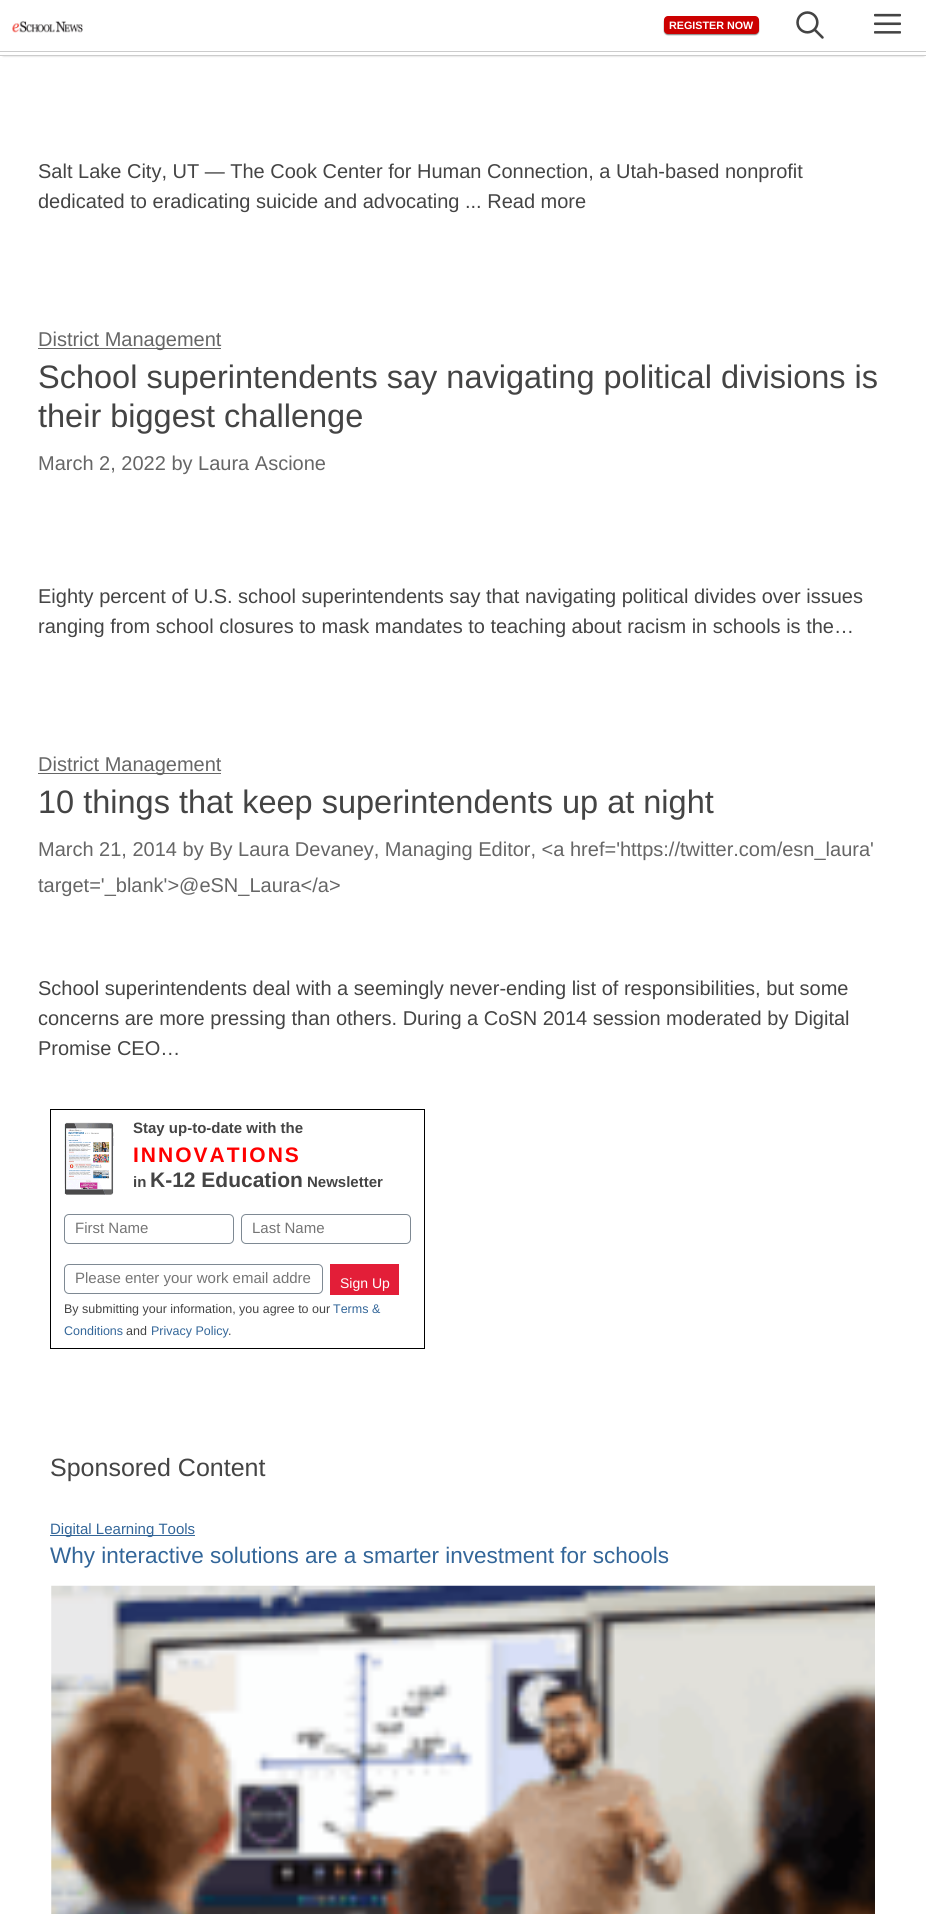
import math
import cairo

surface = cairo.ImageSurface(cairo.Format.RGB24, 926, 1914)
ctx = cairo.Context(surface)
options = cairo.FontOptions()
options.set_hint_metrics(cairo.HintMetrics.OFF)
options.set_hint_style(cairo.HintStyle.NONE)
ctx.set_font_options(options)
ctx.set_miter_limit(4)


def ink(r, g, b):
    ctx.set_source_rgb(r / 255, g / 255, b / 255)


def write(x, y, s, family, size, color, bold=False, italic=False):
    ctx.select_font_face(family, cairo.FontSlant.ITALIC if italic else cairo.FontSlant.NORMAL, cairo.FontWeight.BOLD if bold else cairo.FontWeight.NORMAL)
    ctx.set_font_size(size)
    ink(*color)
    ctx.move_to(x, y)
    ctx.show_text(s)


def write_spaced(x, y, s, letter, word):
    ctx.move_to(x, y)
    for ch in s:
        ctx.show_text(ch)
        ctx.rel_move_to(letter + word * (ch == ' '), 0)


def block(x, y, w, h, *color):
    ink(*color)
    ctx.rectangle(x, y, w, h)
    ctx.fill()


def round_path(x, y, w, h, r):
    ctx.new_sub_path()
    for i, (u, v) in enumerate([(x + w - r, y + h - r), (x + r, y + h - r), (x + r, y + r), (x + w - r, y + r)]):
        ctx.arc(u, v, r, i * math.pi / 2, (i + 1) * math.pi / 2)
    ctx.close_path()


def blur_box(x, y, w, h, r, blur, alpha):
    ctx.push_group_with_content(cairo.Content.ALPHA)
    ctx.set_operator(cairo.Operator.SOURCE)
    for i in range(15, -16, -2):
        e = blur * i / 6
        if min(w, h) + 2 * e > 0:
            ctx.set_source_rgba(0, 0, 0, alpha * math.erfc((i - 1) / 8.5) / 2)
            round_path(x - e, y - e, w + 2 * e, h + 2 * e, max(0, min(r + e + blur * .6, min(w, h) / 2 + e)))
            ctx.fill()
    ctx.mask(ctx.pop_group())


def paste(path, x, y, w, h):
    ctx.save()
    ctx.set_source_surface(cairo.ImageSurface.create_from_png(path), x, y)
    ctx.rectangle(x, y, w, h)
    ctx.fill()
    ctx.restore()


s1 = dict(family="Liberation Sans", size=10.75, color=(255, 255, 255), bold=True)
s2 = dict(family="Liberation Sans", size=20, color=(68, 68, 68))
s3 = dict(family="Liberation Sans", size=20, color=(102, 102, 102))
s4 = dict(family="Liberation Sans", size=32.5, color=(68, 68, 68))
s5 = dict(family="Liberation Sans", size=15, color=(68, 68, 68), bold=True)
s6 = dict(family="Liberation Sans", size=21, color=(68, 68, 68), bold=True)
s7 = dict(family="Liberation Sans", size=15, color=(117, 117, 117))
s8 = dict(family="Liberation Sans", size=14, color=(255, 255, 255))
s9 = dict(family="Liberation Sans", size=12.5, color=(68, 68, 68))
s10 = dict(family="Liberation Sans", size=12.5, color=(51, 102, 153))
s11 = dict(family="Liberation Sans", size=25, color=(68, 68, 68))
s12 = dict(family="Liberation Sans", size=15, color=(51, 102, 153))
s13 = dict(family="Liberation Sans", size=22.5, color=(51, 102, 153))

ink(255, 255, 255)
ctx.paint()
ink(0, 0, 0)
blur_box(3, 5, 921, 51, 0, 1, 0.2)
block(1, 3, 925, 52, 255, 255, 255)
block(0, 51, 926, 1, 204, 204, 204)
block(0, 55, 926, 1, 204, 204, 204)
paste("pic1.png", 12, 20, 71, 13)
ink(136, 136, 136)
blur_box(664, 18, 95, 17, 4, 0.5, 1)
ink(204, 0, 0)
round_path(664, 16, 95, 18, 4)
ctx.fill()
write(669, 29, "REGISTER NOW", **s1)
paste("pic2.png", 796, 11, 28, 28)
paste("pic3.png", 874, 13, 27, 21)
write(38, 178, "Salt Lake City, UT — The Cook Center for Human Connection, a Utah-based nonprofit", **s2)
write(38, 208, "dedicated to eradicating suicide and advocating ... Read more", **s2)
block(38, 348, 183, 1, 102, 102, 102)
write(38, 346, "District Management", **s3)
write(38, 388, "School superintendents say navigating political divisions is", **s4)
write(38, 427, "their biggest challenge", **s4)
write(38, 470, "March 2, 2022 by Laura Ascione", **s3)
write(38, 603, "Eighty percent of U.S. school superintendents say that navigating political divides over issues", **s2)
write(38, 633, "ranging from school closures to mask mandates to teaching about racism in schools is the…", **s2)
block(38, 773, 183, 1, 102, 102, 102)
write(38, 771, "District Management", **s3)
write(38, 813, "10 things that keep superintendents up at night", **s4)
write(38, 856, "March 21, 2014 by By Laura Devaney, Managing Editor, <a href='https://twitter.com/esn_laura'", **s3)
write(38, 892, "target='_blank'>@eSN_Laura</a>", **s3)
write(38, 995, "School superintendents deal with a seemingly never-ending list of responsibilities, but some", **s2)
write(38, 1025, "concerns are more pressing than others. During a CoSN 2014 session moderated by Digital", **s2)
write(38, 1055, "Promise CEO…", **s2)
ctx.rectangle(50.5, 1109.5, 374, 239)
ink(0, 0, 0)
ctx.set_line_width(1)
ctx.stroke()
paste("pic4.png", 64, 1122, 50, 73)
write(133, 1133, "Stay up-to-date with the", **s5)
ctx.set_font_size(21)
ink(255, 0, 0)
write_spaced(133, 1162, "INNOVATIONS", 2, 0)
write(133, 1187, "in", **s5)
write(150, 1187, "K-12 Education", **s6)
write(307, 1187, "Newsletter", **s5)
round_path(64.5, 1214.5, 169, 29, 4.5)
ink(126, 137, 147)
ctx.stroke()
write(75, 1233, "First Name", **s7)
round_path(241.5, 1214.5, 169, 29, 4.5)
ink(126, 137, 147)
ctx.stroke()
write(252, 1233, "Last Name", **s7)
round_path(64.5, 1264.5, 258, 29, 4.5)
ink(126, 137, 147)
ctx.stroke()
write(75, 1283, "Please enter your work email addre", **s7)
block(330, 1264, 69, 31, 227, 30, 56)
write(340, 1288, "Sign Up", **s8)
write(64, 1313, "By submitting your information, you agree to our", **s9)
write(333, 1313, "Terms &", **s10)
write(64, 1335, "Conditions", **s10)
write(126, 1335, "and", **s9)
write(151, 1335, "Privacy Policy", **s10)
write(228, 1335, ".", **s9)
write(50, 1476, "Sponsored Content", **s11)
block(50, 1535, 145, 1, 51, 102, 153)
write(50, 1534, "Digital Learning Tools", **s12)
write(50, 1563, "Why interactive solutions are a smarter investment for schools", **s13)
paste("pic5.png", 51, 1585, 824, 329)
surface.write_to_png("screenshot.png")
